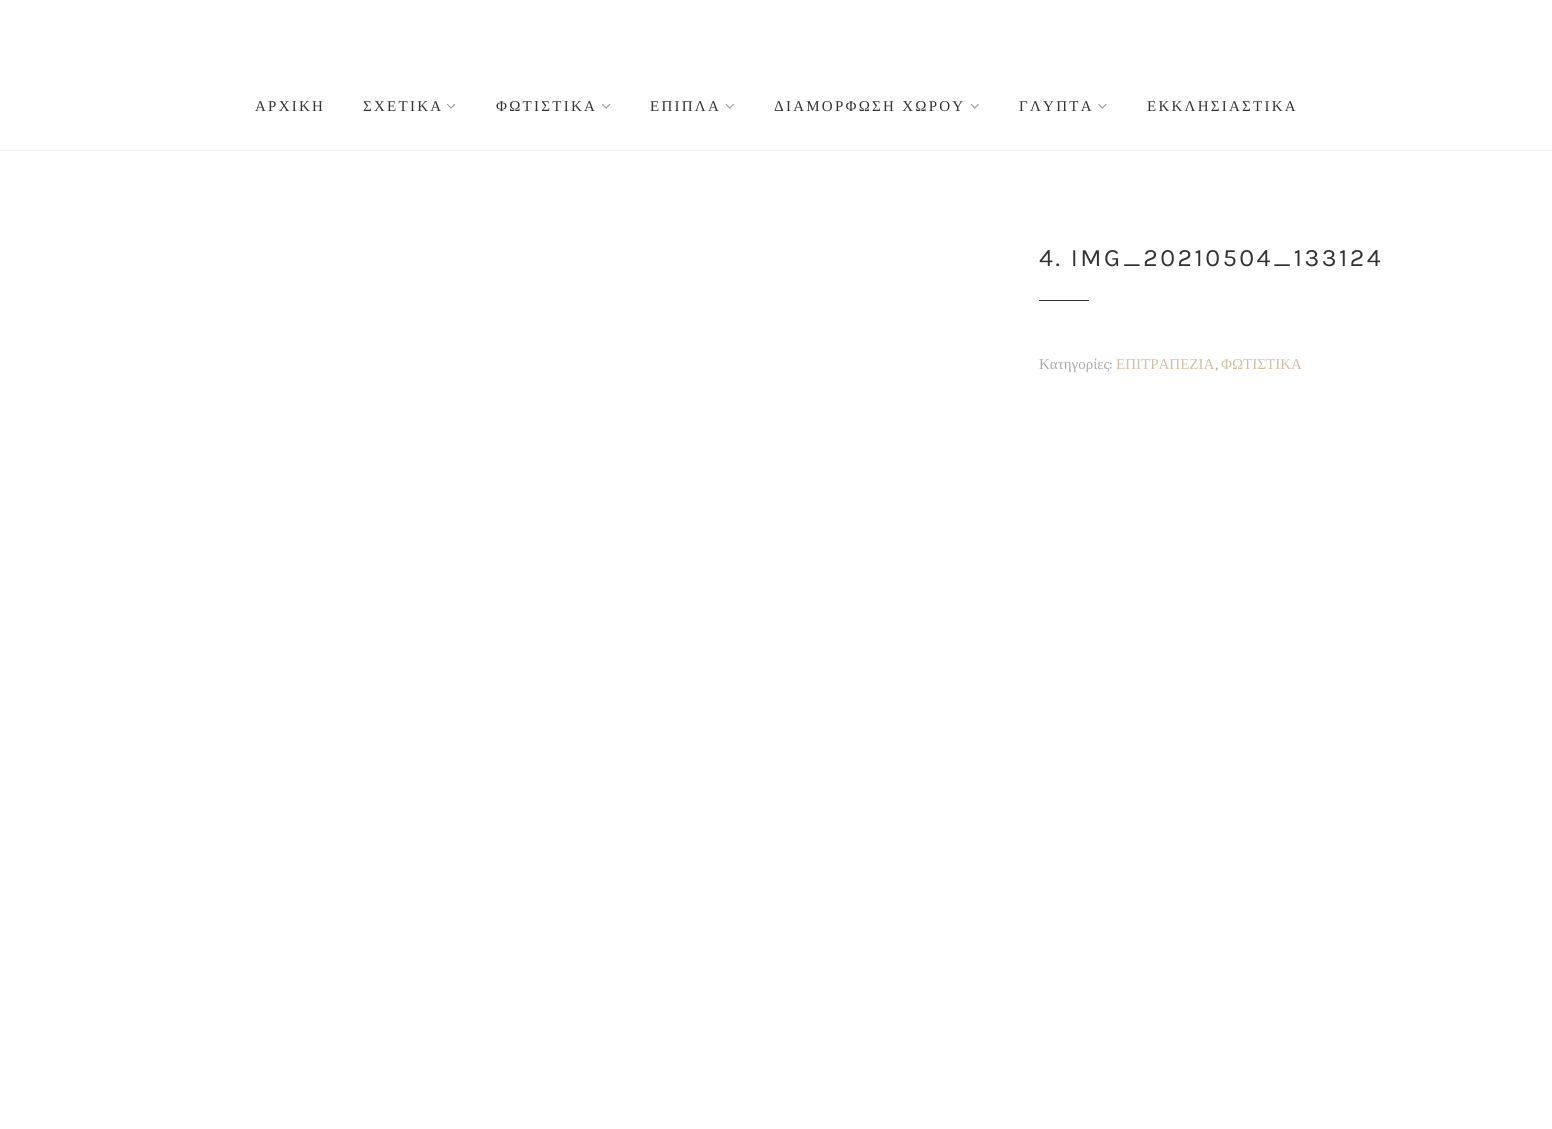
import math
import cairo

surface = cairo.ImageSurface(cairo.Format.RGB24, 1552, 1129)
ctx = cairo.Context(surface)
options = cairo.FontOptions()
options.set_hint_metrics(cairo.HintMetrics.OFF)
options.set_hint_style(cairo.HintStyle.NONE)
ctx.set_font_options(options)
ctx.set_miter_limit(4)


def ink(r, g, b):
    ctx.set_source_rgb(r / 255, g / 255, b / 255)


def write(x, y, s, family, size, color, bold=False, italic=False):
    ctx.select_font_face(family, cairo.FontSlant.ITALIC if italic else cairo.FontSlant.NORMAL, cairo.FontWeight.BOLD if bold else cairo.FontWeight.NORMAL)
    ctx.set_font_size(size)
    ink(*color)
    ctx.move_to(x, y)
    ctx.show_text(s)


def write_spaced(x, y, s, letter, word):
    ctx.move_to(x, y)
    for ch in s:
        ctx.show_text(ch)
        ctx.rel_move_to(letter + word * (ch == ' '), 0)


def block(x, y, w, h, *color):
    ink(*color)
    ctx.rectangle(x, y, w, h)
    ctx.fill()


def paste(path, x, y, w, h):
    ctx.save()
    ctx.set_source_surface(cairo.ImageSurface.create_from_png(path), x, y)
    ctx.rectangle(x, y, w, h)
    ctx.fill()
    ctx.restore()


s1 = dict(family="Liberation Serif", size=15, color=(170, 170, 170))
s2 = dict(family="Karla", size=15, color=(170, 170, 170))
s3 = dict(family="Liberation Serif", size=15, color=(210, 190, 160))

ink(255, 255, 255)
ctx.paint()
ctx.select_font_face("Liberation Serif")
ctx.set_font_size(15)
ink(51, 51, 51)
write_spaced(255, 111, "ΑΡΧΙΚΗ", 2.25, 0)
write_spaced(363, 111, "ΣΧΕΤΙΚΑ", 2.25, 0)
paste("pic1.png", 447, 103, 9, 6)
write_spaced(496, 111, "ΦΩΤΙΣΤΙΚΑ", 2.25, 0)
paste("pic1.png", 602, 103, 9, 6)
write_spaced(650, 111, "ΕΠΙΠΛΑ", 2.25, 0)
paste("pic2.png", 725, 103, 9, 6)
write_spaced(774, 111, "ΔΙΑΜΟΡΦΩΣΗ ΧΩΡΟΥ", 2.25, 0)
paste("pic2.png", 970, 103, 9, 6)
write_spaced(1019, 111, "ΓΛΥΠΤΑ", 2.25, 0)
paste("pic3.png", 1098, 104, 9, 5)
write_spaced(1147, 111, "ΕΚΚΛΗΣΙΑΣΤΙΚΑ", 2.25, 0)
block(0, 150, 1552, 1, 238, 238, 238)
ctx.select_font_face("Karla")
ctx.set_font_size(25)
ink(51, 51, 51)
write_spaced(1039, 266, "4. IMG_20210504_133124", 2.5, 0)
block(1039, 300, 50, 1, 51, 51, 51)
write(1039, 369, "Κατηγορίες", **s1)
write(1109, 369, ":", **s2)
write(1116, 369, "ΕΠΙΤΡΑΠΕΖΙΑ", **s3)
write(1215, 369, ",", **s2)
write(1221, 369, "ΦΩΤΙΣΤΙΚΑ", **s3)
surface.write_to_png("screenshot.png")
